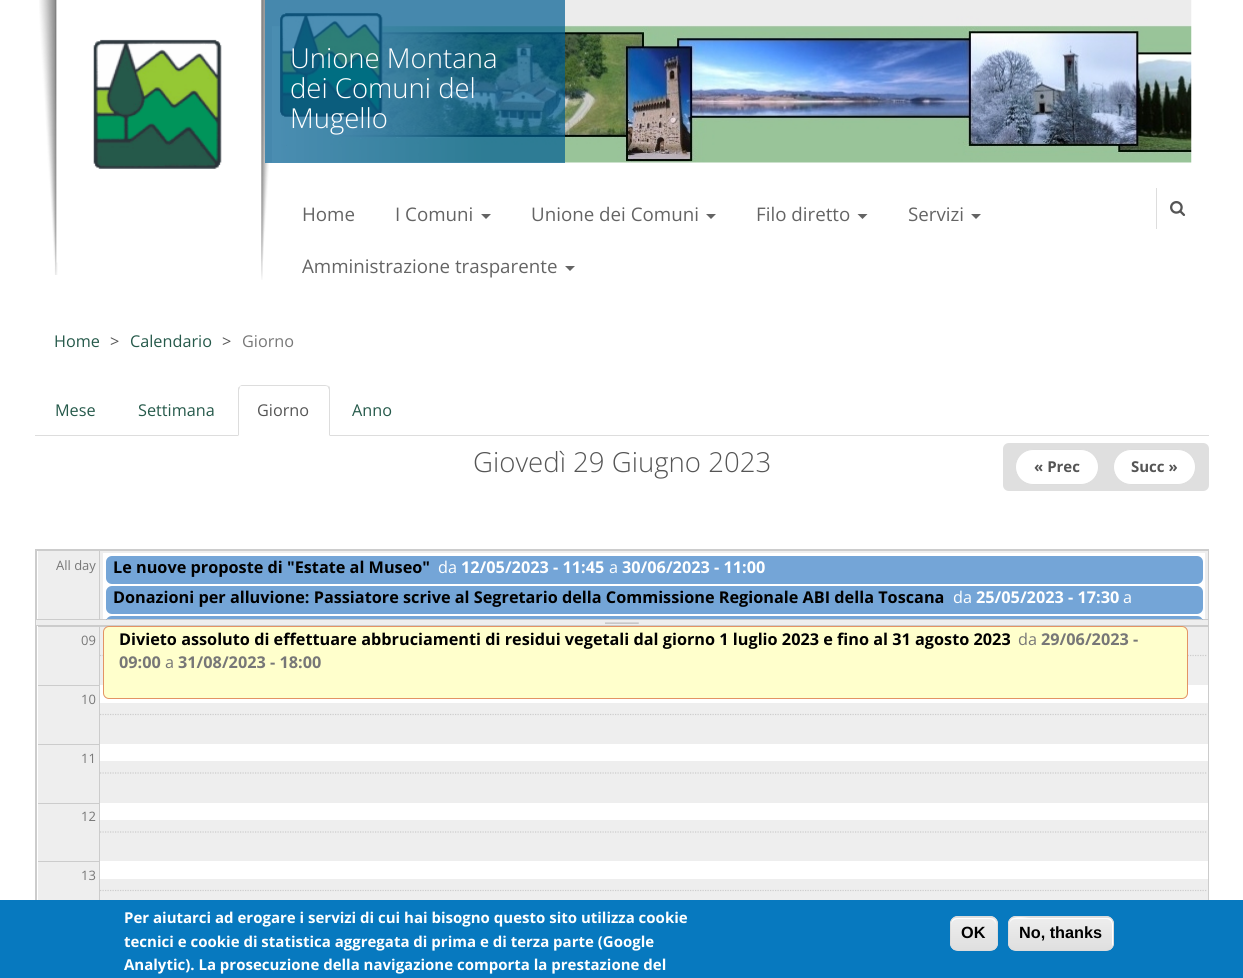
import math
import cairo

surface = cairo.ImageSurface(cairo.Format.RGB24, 1243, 978)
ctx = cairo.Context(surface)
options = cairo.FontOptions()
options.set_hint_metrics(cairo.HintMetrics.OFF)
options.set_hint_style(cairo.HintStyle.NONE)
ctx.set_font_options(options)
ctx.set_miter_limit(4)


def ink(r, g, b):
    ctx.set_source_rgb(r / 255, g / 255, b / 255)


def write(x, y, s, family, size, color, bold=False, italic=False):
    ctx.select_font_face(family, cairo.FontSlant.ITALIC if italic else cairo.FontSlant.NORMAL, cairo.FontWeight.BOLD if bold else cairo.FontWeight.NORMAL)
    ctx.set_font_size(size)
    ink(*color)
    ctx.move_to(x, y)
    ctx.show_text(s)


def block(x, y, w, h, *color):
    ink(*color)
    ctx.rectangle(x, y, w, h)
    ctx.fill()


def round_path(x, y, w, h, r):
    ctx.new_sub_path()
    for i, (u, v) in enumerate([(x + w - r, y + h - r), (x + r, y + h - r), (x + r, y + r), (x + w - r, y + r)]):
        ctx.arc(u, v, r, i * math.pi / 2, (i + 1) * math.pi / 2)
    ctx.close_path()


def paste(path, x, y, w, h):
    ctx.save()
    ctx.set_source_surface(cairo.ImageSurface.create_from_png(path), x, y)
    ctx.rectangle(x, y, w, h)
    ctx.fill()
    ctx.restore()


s1 = dict(family="Open Sans Light", size=27.5, color=(255, 255, 255))
s2 = dict(family="Open Sans", size=18.75, color=(100, 100, 100))
s3 = dict(family="Open Sans", size=16.25, color=(37, 89, 74))
s4 = dict(family="Open Sans", size=16.25, color=(85, 85, 85))
s5 = dict(family="Open Sans", size=16.25, color=(119, 119, 119))
s6 = dict(family="Open Sans Light", size=27.6, color=(85, 85, 85))
s7 = dict(family="Open Sans", size=15, color=(85, 85, 85), bold=True)
s8 = dict(family="Open Sans", size=13, color=(119, 119, 119))
s9 = dict(family="Open Sans", size=16.25, color=(0, 0, 0), bold=True)
s10 = dict(family="Open Sans", size=16.25, color=(255, 255, 255))
s11 = dict(family="Open Sans", size=16.25, color=(255, 255, 255), bold=True)
s12 = dict(family="Open Sans", size=16.25, color=(119, 119, 119), bold=True)
s13 = dict(family="Open Sans", size=15, color=(255, 255, 255), bold=True)
s14 = dict(family="Liberation Sans", size=16.25, color=(0, 0, 0), bold=True)

ink(255, 255, 255)
ctx.paint()
paste("pic1.png", 39, 0, 19, 275)
paste("pic2.png", 93, 39, 129, 130)
paste("pic3.png", 261, 0, 8, 280)
paste("pic4.png", 265, 0, 927, 163)
ctx.set_source_rgba(0, 0.369, 0.58, 0.7)
ctx.rectangle(265, 0, 300, 163)
ctx.fill()
write(290, 68, "Unione Montana", **s1)
write(290, 98, "dei Comuni del", **s1)
write(290, 128, "Mugello", **s1)
write(302, 221, "Home", **s2)
write(395, 221, "I Comuni", **s2)
ctx.new_path()
ctx.move_to(481, 214)
ctx.line_to(491, 214)
ctx.line_to(486, 219)
ctx.close_path()
ctx.fill()
write(531, 221, "Unione dei Comuni", **s2)
ctx.new_path()
ctx.move_to(706, 214)
ctx.line_to(716, 214)
ctx.line_to(711, 219)
ctx.close_path()
ctx.fill()
write(756, 221, "Filo diretto", **s2)
ctx.new_path()
ctx.move_to(857.5, 214)
ctx.line_to(867.5, 214)
ctx.line_to(862.5, 219)
ctx.close_path()
ctx.fill()
write(908, 221, "Servizi", **s2)
ctx.new_path()
ctx.move_to(971, 214)
ctx.line_to(981, 214)
ctx.line_to(976, 219)
ctx.close_path()
ctx.fill()
write(302, 273, "Amministrazione trasparente", **s2)
ctx.new_path()
ctx.move_to(565, 266)
ctx.line_to(575, 266)
ctx.line_to(570, 271)
ctx.close_path()
ctx.fill()
block(1156, 188, 1, 41, 221, 221, 221)
paste("pic5.png", 1170, 201, 16, 15)
write(54, 347, "Home", **s3)
write(110, 347, ">", **s4)
write(130, 347, "Calendario", **s3)
write(222, 347, ">", **s4)
write(242, 347, "Giorno", **s5)
block(35, 435, 1174, 1, 221, 221, 221)
write(55, 416, "Mese", **s3)
write(138, 416, "Settimana", **s3)
ink(255, 255, 255)
ctx.new_path()
ctx.move_to(243, 385)
ctx.line_to(325, 385)
ctx.curve_to(328, 385, 330, 387, 330, 390)
ctx.line_to(330, 436)
ctx.line_to(238, 436)
ctx.line_to(238, 390)
ctx.curve_to(238, 387, 240, 385, 243, 385)
ctx.close_path()
ctx.fill()
ink(221, 221, 221)
ctx.new_path()
ctx.move_to(242, 385)
ctx.curve_to(241, 385, 240, 386, 239, 387)
ctx.line_to(240, 387)
ctx.curve_to(240, 386, 241, 386, 242, 386)
ctx.line_to(325, 386)
ctx.curve_to(326, 386, 327, 386, 328, 387)
ctx.line_to(329, 386)
ctx.curve_to(328, 386, 326, 385, 325, 385)
ctx.close_path()
ctx.fill()
ctx.new_path()
ctx.move_to(330, 436)
ctx.line_to(330, 390)
ctx.curve_to(330, 388, 330, 387, 329, 386)
ctx.line_to(328, 387)
ctx.curve_to(328, 388, 329, 389, 329, 390)
ctx.line_to(329, 435)
ctx.close_path()
ctx.fill()
ctx.new_path()
ctx.move_to(239, 387)
ctx.curve_to(238, 387, 238, 389, 238, 390)
ctx.line_to(238, 436)
ctx.line_to(239, 435)
ctx.line_to(239, 390)
ctx.line_to(240, 387)
ctx.close_path()
ctx.fill()
write(257, 416, "Giorno", **s4)
write(352, 416, "Anno", **s3)
write(473, 472, "Giovedì 29 Giugno 2023", **s6)
ink(223, 223, 223)
ctx.new_path()
ctx.move_to(1009, 443)
ctx.line_to(1111, 443)
ctx.line_to(1111, 491)
ctx.line_to(1009, 491)
ctx.curve_to(1005.5, 491, 1003, 488.5, 1003, 485)
ctx.line_to(1003, 449)
ctx.curve_to(1003, 445.5, 1005.5, 443, 1009, 443)
ctx.close_path()
ctx.fill()
ink(255, 255, 255)
round_path(1015.5, 449.5, 83, 35, 17.5)
ctx.fill_preserve()
ink(221, 221, 221)
ctx.set_line_width(1)
ctx.stroke()
write(1034, 472, "« Prec", **s7)
ink(223, 223, 223)
ctx.new_path()
ctx.move_to(1100, 443)
ctx.line_to(1203, 443)
ctx.curve_to(1206.5, 443, 1209, 445.5, 1209, 449)
ctx.line_to(1209, 485)
ctx.curve_to(1209, 488.5, 1206.5, 491, 1203, 491)
ctx.line_to(1100, 491)
ctx.close_path()
ctx.fill()
ink(255, 255, 255)
round_path(1113.5, 449.5, 82, 35, 17.5)
ctx.fill_preserve()
ink(221, 221, 221)
ctx.stroke()
write(1131, 472, "Succ »", **s7)
block(35, 549, 1174, 1, 204, 204, 204)
block(35, 619, 1174, 1, 204, 204, 204)
block(35, 549, 1, 71, 204, 204, 204)
block(36, 550, 1173, 1, 204, 204, 204)
block(1208, 550, 1, 69, 204, 204, 204)
block(36, 550, 1, 69, 204, 204, 204)
block(38, 551, 61, 68, 238, 238, 238)
write(56, 570, "All day", **s8)
block(100, 551, 1108, 68, 238, 238, 238)
block(99, 551, 1, 68, 204, 204, 204)
block(103, 553, 1102, 66, 255, 255, 255)
ink(116, 165, 215)
round_path(106, 556, 1097, 28, 6)
ctx.fill()
write(113, 573, "Le nuove proposte di \"Estate al Museo\"", **s9)
write(438, 573, "da", **s10)
write(461, 573, "12/05/2023 - 11:45", **s11)
write(609, 573, "a", **s10)
write(622, 573, "30/06/2023 - 11:00", **s11)
ink(116, 165, 215)
round_path(106, 586, 1097, 28, 6)
ctx.fill()
write(113, 603, "Donazioni per alluvione: Passiatore scrive al Segretario della Commissione Regionale ABI della Toscana", **s9)
write(953, 603, "da", **s10)
write(976, 603, "25/05/2023 - 17:30", **s11)
write(1123, 603, "a", **s10)
ink(116, 165, 215)
ctx.new_path()
ctx.move_to(112, 616)
ctx.line_to(1197, 616)
ctx.curve_to(1200.5, 616, 1203, 618.5, 1203, 622)
ctx.line_to(1203, 619)
ctx.line_to(106, 619)
ctx.line_to(106, 622)
ctx.curve_to(106, 618.5, 108.5, 616, 112, 616)
ctx.close_path()
ctx.fill()
block(35, 620, 1174, 5, 238, 238, 238)
block(1208, 620, 1, 5, 204, 204, 204)
block(35, 620, 1, 5, 204, 204, 204)
paste("pic6.png", 605, 622, 34, 2)
block(35, 625, 1174, 1, 204, 204, 204)
block(35, 625, 1, 275, 204, 204, 204)
block(1208, 626, 1, 274, 204, 204, 204)
block(36, 626, 1, 274, 204, 204, 204)
block(38, 627, 61, 273, 238, 238, 238)
block(38, 626, 61, 1, 204, 204, 204)
write(81, 645, "09", **s8)
block(38, 685, 61, 1, 204, 204, 204)
write(81, 704, "10", **s8)
block(38, 744, 61, 1, 204, 204, 204)
write(81, 763, "11", **s8)
block(38, 803, 61, 1, 204, 204, 204)
write(81, 821, "12", **s8)
block(38, 861, 61, 1, 204, 204, 204)
write(81, 880, "13", **s8)
block(100, 627, 1108, 273, 238, 238, 238)
block(99, 626, 1, 274, 204, 204, 204)
block(100, 626, 1108, 1, 204, 204, 204)
ctx.new_path()
ctx.move_to(100, 655.5)
ctx.line_to(1207.5, 655.5)
ctx.set_line_width(1.2)
ctx.set_dash([1.25, 1.25])
ctx.stroke()
block(100, 685, 1108, 18, 255, 255, 255)
ink(255, 255, 204)
round_path(103.5, 626.5, 1084, 72, 5.5)
ctx.fill_preserve()
ink(227, 147, 100)
ctx.set_line_width(1)
ctx.set_dash([])
ctx.stroke()
write(1018, 645, "da", **s5)
write(1041, 645, "29/06/2023 -", **s12)
write(119, 668, "09:00", **s12)
write(165, 668, "a", **s5)
write(178, 668, "31/08/2023 - 18:00", **s12)
write(119, 645, "Divieto assoluto di effettuare abbruciamenti di residui vegetali dal giorno 1 luglio 2023 e fino al 31 agosto 2023", **s9)
ctx.new_path()
ctx.move_to(100, 714.5)
ctx.line_to(1207.5, 714.5)
ink(204, 204, 204)
ctx.set_line_width(1.2)
ctx.set_dash([1.25, 1.25])
ctx.stroke()
block(100, 744, 1108, 17, 255, 255, 255)
ctx.new_path()
ctx.move_to(100, 773)
ctx.line_to(1207.5, 773)
ink(204, 204, 204)
ctx.stroke()
block(100, 803, 1108, 17, 255, 255, 255)
ctx.new_path()
ctx.move_to(100, 832)
ctx.line_to(1207.5, 832)
ink(204, 204, 204)
ctx.stroke()
block(100, 861, 1108, 18, 255, 255, 255)
ctx.new_path()
ctx.move_to(100, 890.5)
ctx.line_to(1207.5, 890.5)
ink(204, 204, 204)
ctx.stroke()
block(0, 900, 1243, 78, 7, 121, 191)
write(124, 923, "Per aiutarci ad erogare i servizi di cui hai bisogno questo sito utilizza cookie", **s13)
write(124, 947, "tecnici e cookie di statistica aggregata di prima e di terza parte (Google", **s13)
write(124, 970, "Analytic). La prosecuzione della navigazione comporta la prestazione del", **s13)
ctx.save()
round_path(950, 916, 48, 35, 8)
ctx.clip()
gradient = cairo.LinearGradient(974, 885, 974, 918)
gradient.add_color_stop_rgba(0.05, 0.929, 0.929, 0.929, 1)
gradient.add_color_stop_rgba(1, 0.875, 0.875, 0.875, 1)
ctx.set_source(gradient)
ctx.rectangle(950, 916, 48, 2)
ctx.fill()
gradient = cairo.LinearGradient(974, 918, 974, 950)
gradient.add_color_stop_rgba(0.05, 0.929, 0.929, 0.929, 1)
gradient.add_color_stop_rgba(1, 0.875, 0.875, 0.875, 1)
ctx.set_source(gradient)
ctx.rectangle(950, 918, 48, 32)
ctx.fill()
ctx.restore()
ctx.new_path()
ctx.move_to(958, 919)
ctx.line_to(990, 919)
ctx.curve_to(993, 919, 996, 922, 996, 925)
ctx.curve_to(996, 917, 990, 918, 984, 918)
ctx.line_to(962, 918)
ctx.curve_to(957, 918, 951, 917, 951, 925)
ctx.curve_to(951, 922, 954, 919, 958, 919)
ctx.close_path()
ctx.fill()
round_path(950.5, 916.5, 47, 34, 7.5)
ink(220, 220, 220)
ctx.set_line_width(1)
ctx.set_dash([])
ctx.stroke()
write(961, 938, "OK", **s14)
ctx.save()
round_path(1008, 916, 106, 35, 8)
ctx.clip()
gradient = cairo.LinearGradient(1061, 885, 1061, 918)
gradient.add_color_stop_rgba(0.05, 0.929, 0.929, 0.929, 1)
gradient.add_color_stop_rgba(1, 0.875, 0.875, 0.875, 1)
ctx.set_source(gradient)
ctx.rectangle(1008, 916, 106, 2)
ctx.fill()
gradient = cairo.LinearGradient(1061, 918, 1061, 950)
gradient.add_color_stop_rgba(0.05, 0.929, 0.929, 0.929, 1)
gradient.add_color_stop_rgba(1, 0.875, 0.875, 0.875, 1)
ctx.set_source(gradient)
ctx.rectangle(1008, 918, 106, 32)
ctx.fill()
ctx.restore()
ink(255, 255, 255)
ctx.new_path()
ctx.move_to(1015, 919)
ctx.line_to(1106, 919)
ctx.curve_to(1110, 919, 1112, 922, 1112, 925)
ctx.line_to(1112, 945)
ctx.curve_to(1112, 946, 1112, 947, 1111, 948)
ctx.curve_to(1115, 945, 1113, 938, 1113, 934)
ctx.curve_to(1113, 929, 1115, 918, 1107, 918)
ctx.line_to(1030, 918)
ctx.curve_to(1024, 918, 1009, 914, 1009, 925)
ctx.curve_to(1009, 922, 1012, 919, 1015, 919)
ctx.close_path()
ctx.fill()
round_path(1008.5, 916.5, 105, 34, 7.5)
ink(220, 220, 220)
ctx.stroke()
write(1019, 938, "No, thanks", **s14)
surface.write_to_png("screenshot.png")
